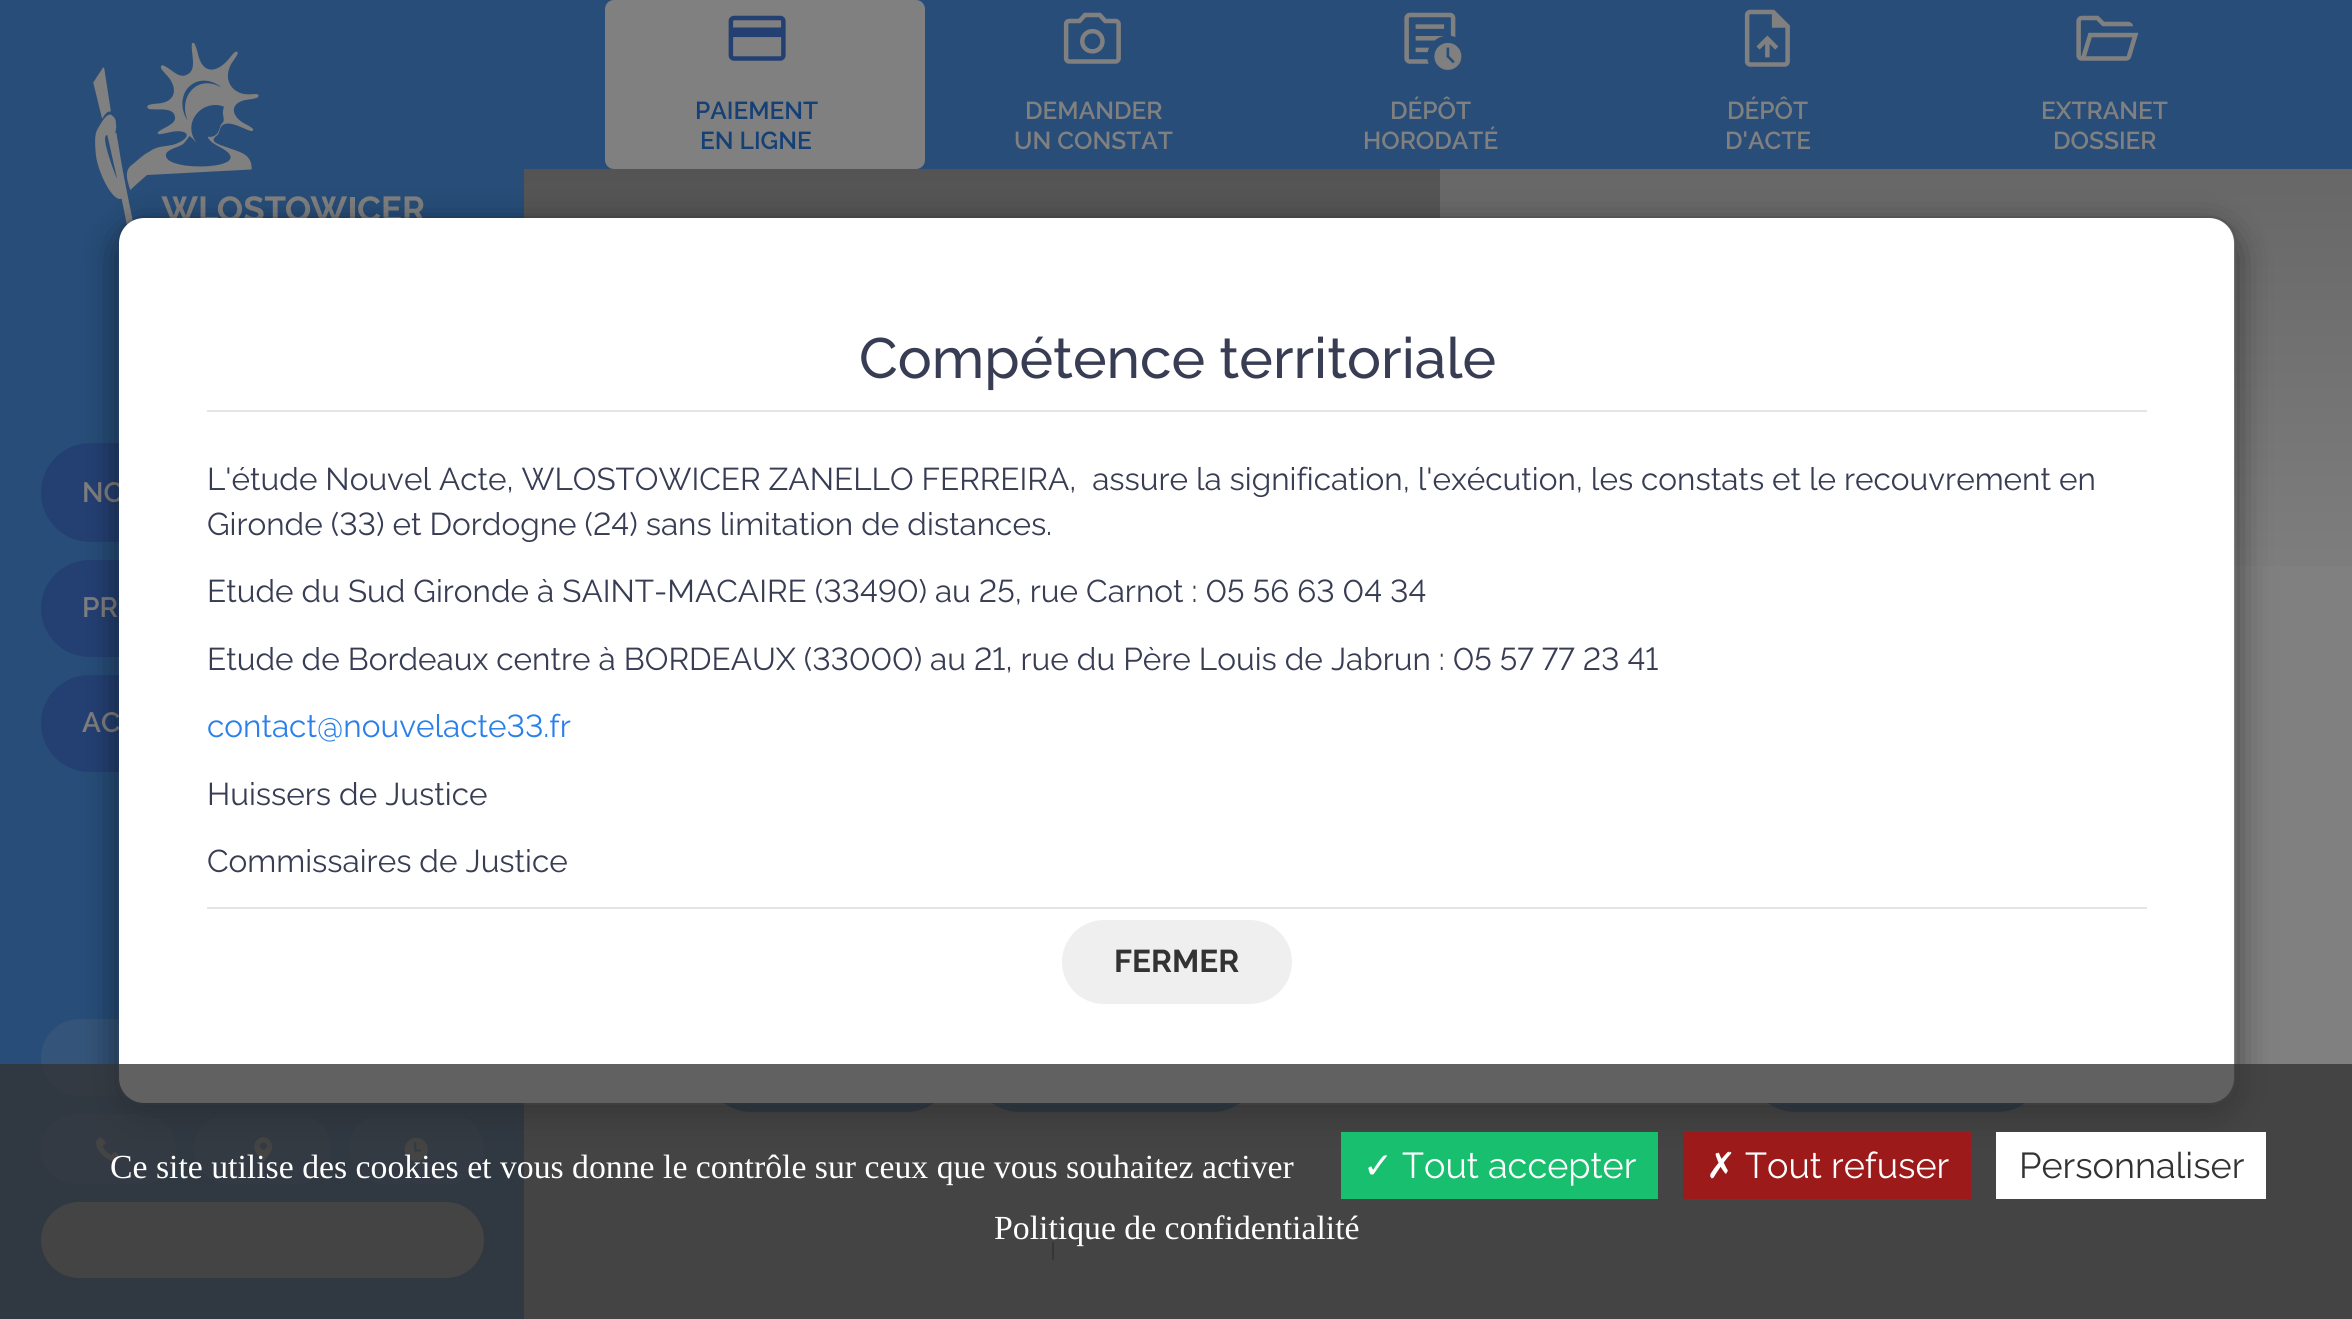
import math
import cairo

surface = cairo.ImageSurface(cairo.Format.RGB24, 2352, 1319)
ctx = cairo.Context(surface)
options = cairo.FontOptions()
options.set_hint_metrics(cairo.HintMetrics.OFF)
options.set_hint_style(cairo.HintStyle.NONE)
ctx.set_font_options(options)
ctx.set_miter_limit(4)


def ink(r, g, b):
    ctx.set_source_rgb(r / 255, g / 255, b / 255)


def write(x, y, s, family, size, color, bold=False, italic=False):
    ctx.select_font_face(family, cairo.FontSlant.ITALIC if italic else cairo.FontSlant.NORMAL, cairo.FontWeight.BOLD if bold else cairo.FontWeight.NORMAL)
    ctx.set_font_size(size)
    ink(*color)
    ctx.move_to(x, y)
    ctx.show_text(s)


def write_spaced(x, y, s, letter, word):
    ctx.move_to(x, y)
    for ch in s:
        ctx.show_text(ch)
        ctx.rel_move_to(letter + word * (ch == ' '), 0)


def block(x, y, w, h, *color):
    ink(*color)
    ctx.rectangle(x, y, w, h)
    ctx.fill()


def round_path(x, y, w, h, r):
    ctx.new_sub_path()
    for i, (u, v) in enumerate([(x + w - r, y + h - r), (x + r, y + h - r), (x + r, y + r), (x + w - r, y + r)]):
        ctx.arc(u, v, r, i * math.pi / 2, (i + 1) * math.pi / 2)
    ctx.close_path()


def blur_box(x, y, w, h, r, blur, alpha):
    ctx.push_group_with_content(cairo.Content.ALPHA)
    ctx.set_operator(cairo.Operator.SOURCE)
    for i in range(15, -16, -2):
        e = blur * i / 6
        if min(w, h) + 2 * e > 0:
            ctx.set_source_rgba(0, 0, 0, alpha * math.erfc((i - 1) / 8.5) / 2)
            round_path(x - e, y - e, w + 2 * e, h + 2 * e, max(0, min(r + e + blur * .6, min(w, h) / 2 + e)))
            ctx.fill()
    ctx.mask(ctx.pop_group())


def paste(path, x, y, w, h):
    ctx.save()
    ctx.set_source_surface(cairo.ImageSurface.create_from_png(path), x, y)
    ctx.rectangle(x, y, w, h)
    ctx.fill()
    ctx.restore()


s1 = dict(family="Raleway SemiBold", size=24.5, color=(21, 64, 117))
s2 = dict(family="Raleway SemiBold", size=24.5, color=(128, 128, 128))
s3 = dict(family="Raleway SemiBold", size=28, color=(128, 128, 128))
s4 = dict(family="Raleway Medium", size=56.75, color=(56, 61, 84))
s5 = dict(family="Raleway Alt", size=31.5, color=(56, 61, 84))
s6 = dict(family="Raleway Alt", size=31.5, color=(42, 128, 234))
s7 = dict(family="Raleway", size=31.5, color=(56, 61, 84))
s8 = dict(family="Raleway", size=31.5, color=(51, 51, 51), bold=True)
s9 = dict(family="Liberation Serif", size=33.75, color=(255, 255, 255))
s10 = dict(family="DejaVu Sans", size=36, color=(255, 255, 255))
s11 = dict(family="Raleway", size=36, color=(255, 255, 255))
s12 = dict(family="Raleway", size=36, color=(51, 51, 51))

ink(128, 128, 128)
ctx.paint()
block(524, 0, 1828, 169, 39, 77, 120)
ink(128, 128, 128)
round_path(605, 0, 320, 169, 9)
ctx.fill()
paste("pic1.png", 728, 15, 58, 46)
write(695, 119, "PAIEMENT", **s1)
write(700, 149, "EN LIGNE", **s1)
paste("pic2.png", 1063, 12, 58, 52)
write(1025, 119, "DEMANDER", **s2)
write(1014, 149, "UN CONSTAT", **s2)
paste("pic3.png", 1404, 12, 58, 58)
write(1390, 119, "DÉPÔT", **s2)
write(1363, 149, "HORODATÉ", **s2)
paste("pic4.png", 1744, 9, 46, 58)
write(1727, 119, "DÉPÔT", **s2)
write(1725, 149, "D'ACTE", **s2)
paste("pic5.png", 2076, 15, 63, 46)
write(2041, 119, "EXTRANET", **s2)
write(2053, 149, "DOSSIER", **s2)
gradient = cairo.LinearGradient(982, 169, 982, 1051)
gradient.add_color_stop_rgba(0, 0.329, 0.329, 0.329, 1)
gradient.add_color_stop_rgba(0.5, 0.412, 0.412, 0.412, 1)
ctx.set_source(gradient)
ctx.rectangle(524, 169, 916, 49)
ctx.fill()
ink(21, 64, 117)
round_path(704, 1017, 250, 95, 47.5)
ctx.fill()
round_path(972, 1017, 288, 95, 47.5)
ctx.fill()
gradient = cairo.LinearGradient(1897, 169, 1897, 1051)
gradient.add_color_stop_rgba(0, 0.404, 0.404, 0.404, 1)
gradient.add_color_stop_rgba(0.5, 0.502, 0.502, 0.502, 1)
ctx.set_source(gradient)
ctx.rectangle(1440, 169, 912, 397)
ctx.fill()
ink(21, 64, 117)
round_path(1748, 1017, 297, 95, 47.5)
ctx.fill()
block(1052, 1242, 2, 18, 58, 65, 81)
block(0, 0, 524, 1319, 39, 77, 120)
paste("pic6.png", 93, 43, 331, 183)
ink(36, 64, 115)
round_path(41, 443, 443, 99, 49.5)
ctx.fill()
write(82, 502, "NO", **s3)
ink(36, 64, 115)
round_path(41, 560, 443, 97, 48.5)
ctx.fill()
write(82, 617, "PR", **s3)
ink(36, 64, 115)
round_path(41, 675, 443, 97, 48.5)
ctx.fill()
write(82, 732, "AC", **s3)
ink(52, 84, 121)
round_path(41, 1019, 443, 77, 38.5)
ctx.fill()
round_path(41, 1114, 135, 70, 35)
ctx.fill()
paste("pic7.png", 95, 1137, 26, 25)
round_path(194, 1114, 137, 70, 35)
ctx.fill()
paste("pic8.png", 254, 1137, 19, 25)
round_path(349, 1114, 135, 70, 35)
ctx.fill()
paste("pic9.png", 404, 1137, 24, 25)
ink(128, 128, 128)
round_path(41, 1202, 443, 76, 38)
ctx.fill()
ctx.save()
ctx.set_fill_rule(cairo.FillRule.EVEN_ODD)
ctx.new_path()
ctx.move_to(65, 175)
ctx.line_to(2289, 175)
ctx.line_to(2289, 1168)
ctx.line_to(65, 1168)
ctx.close_path()
ctx.move_to(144, 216)
ctx.line_to(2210, 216)
ctx.curve_to(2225, 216, 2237, 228, 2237, 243)
ctx.line_to(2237, 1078)
ctx.curve_to(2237, 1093, 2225, 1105, 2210, 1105)
ctx.line_to(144, 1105)
ctx.curve_to(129, 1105, 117, 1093, 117, 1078)
ctx.line_to(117, 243)
ctx.curve_to(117, 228, 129, 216, 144, 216)
ctx.close_path()
ctx.clip()
ink(0, 0, 0)
blur_box(117, 227, 2120, 889, 27, 17, 0.5)
ctx.restore()
ink(255, 255, 255)
round_path(119, 218, 2115, 885, 25)
ctx.fill()
round_path(118, 217, 2118, 887, 26)
ctx.set_source_rgba(0, 0, 0, 0.2)
ctx.stroke()
block(207, 410, 1940, 2, 229, 229, 229)
write(859, 378, "Compétence territoriale", **s4)
ctx.select_font_face("Raleway")
ctx.set_font_size(31.5)
write_spaced(207, 490, "L'étude Nouvel Acte, WLOSTOWICER ZANELLO FERREIRA,  assure la signification, l'exécution, les constats et le recouvrement en", 0, -0.1)
write(207, 535, "Gironde (33) et Dordogne (24) sans limitation de distances.", **s5)
write(207, 602, "Etude du Sud Gironde à SAINT-MACAIRE (33490) au 25, rue Carnot : 05 56 63 04 34", **s5)
write(207, 670, "Etude de Bordeaux centre à BORDEAUX (33000) au 21, rue du Père Louis de Jabrun : 05 57 77 23 41", **s5)
write(207, 737, "contact@nouvelacte33.fr", **s6)
write(207, 805, "Huissers de Justice", **s7)
write(207, 872, "Commissaires de Justice", **s7)
block(207, 907, 1940, 2, 229, 229, 229)
ink(239, 239, 239)
round_path(1062, 920, 230, 84, 42)
ctx.fill()
write(1114, 972, "FERMER", **s8)
ctx.set_source_rgba(0.2, 0.2, 0.2, 0.77)
ctx.rectangle(0, 1064, 2352, 255)
ctx.fill()
write(110, 1178, "Ce site utilise des cookies et vous donne le contrôle sur ceux que vous souhaitez activer", **s9)
block(1341, 1132, 317, 67, 24, 191, 110)
write(1363, 1178, "✓", **s10)
write(1402, 1178, "Tout accepter", **s11)
block(1683, 1132, 288, 67, 156, 26, 26)
write(1706, 1178, "✗", **s10)
write(1745, 1178, "Tout refuser", **s11)
block(1996, 1132, 270, 67, 255, 255, 255)
write(2019, 1178, "Personnaliser", **s12)
write(994, 1239, "Politique de confidentialité", **s9)
surface.write_to_png("screenshot.png")
